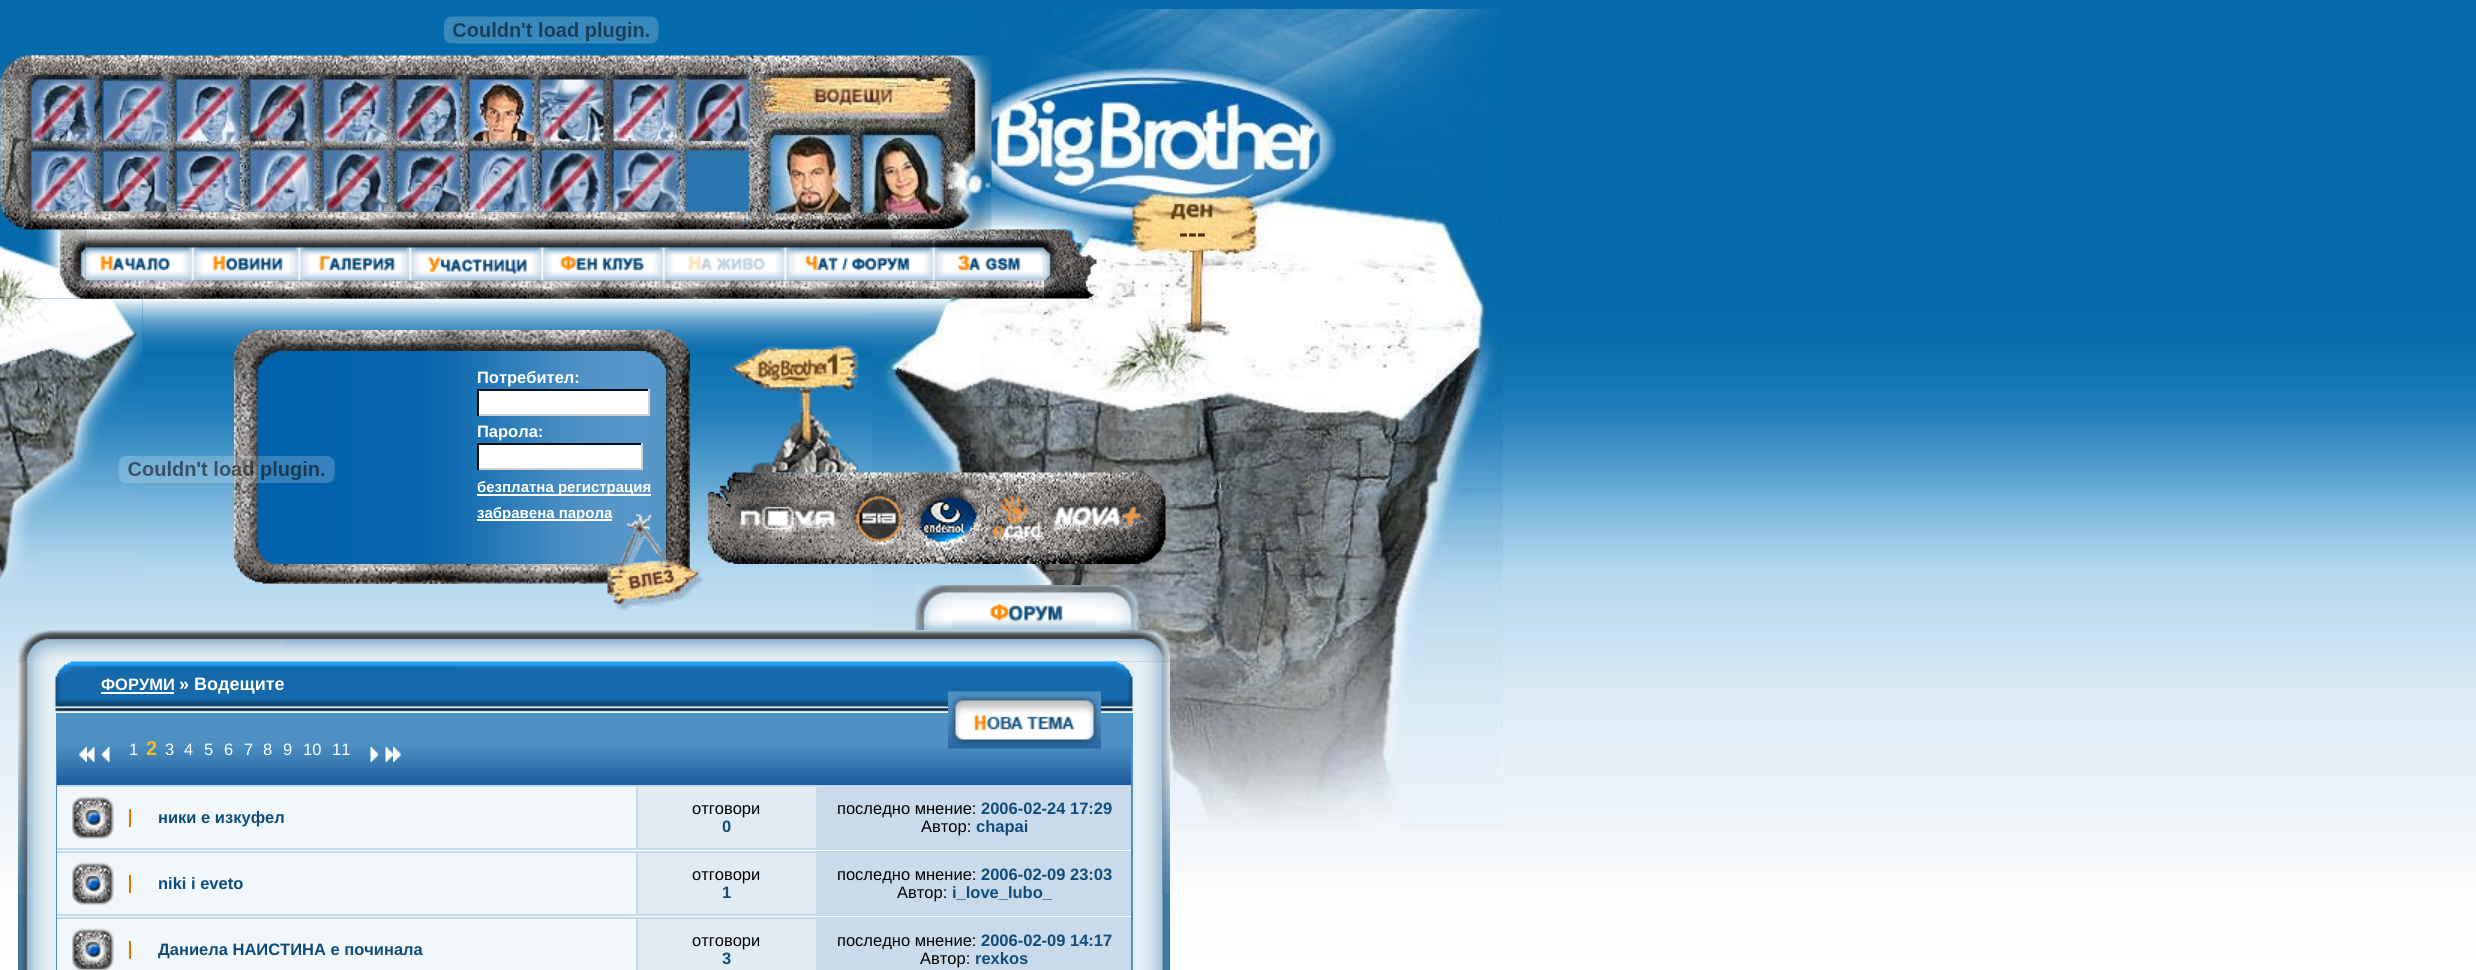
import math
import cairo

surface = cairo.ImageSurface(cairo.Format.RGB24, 2476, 970)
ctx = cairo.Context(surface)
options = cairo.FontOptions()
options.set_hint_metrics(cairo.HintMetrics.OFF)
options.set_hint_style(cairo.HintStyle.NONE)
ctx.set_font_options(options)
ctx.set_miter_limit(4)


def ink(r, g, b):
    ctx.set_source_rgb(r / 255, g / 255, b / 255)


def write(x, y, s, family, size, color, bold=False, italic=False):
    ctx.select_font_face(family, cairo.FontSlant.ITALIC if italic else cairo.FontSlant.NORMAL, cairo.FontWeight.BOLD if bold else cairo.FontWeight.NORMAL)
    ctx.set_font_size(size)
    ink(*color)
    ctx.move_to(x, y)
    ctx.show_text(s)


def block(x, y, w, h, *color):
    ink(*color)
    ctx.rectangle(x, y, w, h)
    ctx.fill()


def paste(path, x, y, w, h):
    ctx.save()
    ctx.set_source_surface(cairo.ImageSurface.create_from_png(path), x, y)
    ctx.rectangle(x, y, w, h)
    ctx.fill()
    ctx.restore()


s1 = dict(family="Liberation Sans", size=27, color=(82, 50, 11), bold=True)
s2 = dict(family="Liberation Sans", size=16.5, color=(255, 255, 255), bold=True)
s3 = dict(family="Liberation Sans", size=15, color=(255, 255, 255), bold=True)
s4 = dict(family="Liberation Sans", size=18, color=(255, 255, 255), bold=True)
s5 = dict(family="Liberation Sans", size=16.5, color=(255, 255, 255))
s6 = dict(family="Liberation Sans", size=20, color=(250, 183, 35), bold=True)
s7 = dict(family="Liberation Sans", size=16.5, color=(16, 76, 123), bold=True)
s8 = dict(family="Liberation Sans", size=16.5, color=(0, 0, 0))

ink(255, 255, 255)
ctx.paint()
paste("pic1.png", 0, 0, 2476, 970)
paste("pic2.png", 444, 16, 215, 28)
paste("pic4.png", 31, 55, 718, 20)
paste("pic8.png", 31, 211, 718, 19)
paste("pic3.png", 0, 55, 32, 175)
paste("pic5.png", 31, 55, 130, 20)
paste("pic18.png", 0, 246, 33, 53)
paste("pic19.png", 0, 298, 143, 284)
paste("pic20.png", 142, 298, 730, 59)
paste("pic17.png", 871, 9, 632, 816)
paste("pic6.png", 748, 55, 244, 175)
paste("pic7.png", 31, 75, 718, 137)
paste("pic9.png", 31, 211, 130, 19)
paste("pic11.png", 85, 229, 959, 19)
paste("pic15.png", 85, 280, 959, 19)
paste("pic10.png", 33, 229, 53, 70)
paste("pic12.png", 891, 229, 153, 19)
paste("pic13.png", 1044, 229, 53, 70)
paste("pic14.png", 85, 247, 959, 34)
paste("pic16.png", 85, 280, 130, 19)
write(1179, 242, "---", **s1)
paste("pic27.png", 257, 332, 412, 233)
ctx.rectangle(256, 331, 414, 238)
ink(18, 114, 175)
ctx.stroke()
paste("pic22.png", 234, 330, 44, 41)
paste("pic30.png", 234, 544, 45, 40)
paste("pic26.png", 234, 370, 24, 178)
paste("pic21.png", 118, 456, 217, 27)
paste("pic25.png", 646, 330, 44, 41)
paste("pic23.png", 277, 330, 373, 21)
paste("pic24.png", 277, 330, 184, 21)
write(477, 383, "Потребител:", **s2)
block(479, 391, 169, 23, 255, 255, 255)
block(477, 389, 173, 2, 2, 13, 26)
block(648, 389, 2, 27, 206, 210, 215)
block(477, 414, 173, 2, 206, 210, 215)
block(477, 389, 2, 27, 2, 13, 26)
write(477, 437, "Парола:", **s2)
block(479, 445, 162, 23, 255, 255, 255)
block(477, 443, 165, 2, 2, 13, 26)
block(641, 443, 2, 27, 206, 210, 215)
block(477, 468, 165, 2, 206, 210, 215)
block(477, 443, 2, 27, 2, 13, 26)
block(477, 494, 174, 2, 255, 255, 255)
write(477, 492, "безплатна регистрация", **s3)
block(477, 519, 135, 2, 255, 255, 255)
write(477, 518, "забравена парола", **s3)
paste("pic29.png", 666, 370, 24, 199)
paste("pic31.png", 277, 564, 351, 20)
paste("pic28.png", 607, 514, 97, 97)
paste("pic32.png", 277, 564, 184, 20)
paste("pic33.png", 730, 345, 128, 128)
paste("pic34.png", 708, 472, 458, 92)
paste("pic35.png", 915, 585, 224, 45)
paste("pic36.png", 18, 630, 1152, 32)
paste("pic37.png", 18, 661, 1152, 309)
paste("pic38.png", 18, 661, 9, 233)
paste("pic39.png", 55, 661, 1078, 52)
write(101, 690, "ФОРУМИ", **s2)
block(101, 692, 73, 2, 255, 255, 255)
write(179, 690, "» Водещите", **s4)
block(56, 713, 1077, 257, 77, 145, 196)
paste("pic40.png", 57, 746, 1074, 39)
paste("pic41.png", 79, 747, 8, 15)
paste("pic42.png", 87, 747, 8, 15)
paste("pic42.png", 102, 747, 8, 15)
write(129, 755, "1", **s5)
write(146, 755, "2", **s6)
write(165, 755, "3", **s5)
write(184, 755, "4", **s5)
write(204, 755, "5", **s5)
write(224, 755, "6", **s5)
write(244, 755, "7", **s5)
write(263, 755, "8", **s5)
write(283, 755, "9", **s5)
write(303, 755, "10", **s5)
write(332, 755, "11", **s5)
paste("pic43.png", 370, 747, 8, 15)
paste("pic43.png", 385, 747, 8, 15)
paste("pic44.png", 393, 747, 8, 15)
paste("pic45.png", 948, 691, 153, 58)
block(57, 850, 1074, 67, 255, 255, 255)
block(57, 787, 579, 61, 242, 247, 251)
block(57, 785, 1074, 2, 196, 219, 236)
block(57, 848, 542, 2, 196, 219, 236)
paste("pic46.png", 72, 796, 42, 43)
write(158, 823, "ники е изкуфел", **s7)
block(129, 809, 2, 18, 235, 111, 0)
block(636, 785, 2, 64, 196, 219, 236)
block(599, 848, 39, 2, 196, 219, 236)
block(638, 787, 178, 61, 225, 235, 243)
block(816, 785, 2, 64, 196, 219, 236)
block(638, 848, 493, 2, 196, 219, 236)
write(692, 814, "отговори", **s8)
write(722, 832, "0", **s7)
block(818, 787, 313, 61, 201, 219, 234)
write(837, 814, "последно мнение:", **s8)
write(981, 814, "2006-02-24 17:29", **s7)
write(921, 832, "Автор:", **s8)
write(976, 832, "chapai", **s7)
block(57, 853, 579, 61, 242, 247, 251)
block(57, 851, 1074, 2, 196, 219, 236)
block(57, 914, 542, 2, 196, 219, 236)
paste("pic46.png", 72, 862, 42, 43)
write(158, 889, "niki i eveto", **s7)
block(129, 875, 2, 18, 235, 111, 0)
block(636, 851, 2, 64, 196, 219, 236)
block(599, 914, 39, 2, 196, 219, 236)
block(638, 853, 178, 61, 225, 235, 243)
block(816, 851, 2, 64, 196, 219, 236)
block(638, 914, 493, 2, 196, 219, 236)
write(692, 880, "отговори", **s8)
write(722, 898, "1", **s7)
block(818, 853, 313, 61, 201, 219, 234)
write(837, 880, "последно мнение:", **s8)
write(981, 880, "2006-02-09 23:03", **s7)
write(897, 898, "Автор:", **s8)
write(952, 898, "i_love_lubo_", **s7)
block(57, 919, 579, 51, 242, 247, 251)
block(57, 917, 1074, 2, 196, 219, 236)
paste("pic47.png", 72, 928, 42, 42)
write(158, 955, "Даниела НАИСТИНА е починала", **s7)
block(129, 941, 2, 18, 235, 111, 0)
block(636, 917, 2, 53, 196, 219, 236)
block(638, 919, 178, 51, 225, 235, 243)
block(816, 917, 2, 53, 196, 219, 236)
write(692, 946, "отговори", **s8)
write(722, 964, "3", **s7)
block(818, 919, 313, 51, 201, 219, 234)
write(837, 946, "последно мнение:", **s8)
write(981, 946, "2006-02-09 14:17", **s7)
write(920, 964, "Автор:", **s8)
write(975, 964, "rexkos", **s7)
paste("pic48.png", 1162, 661, 8, 233)
surface.write_to_png("screenshot.png")
